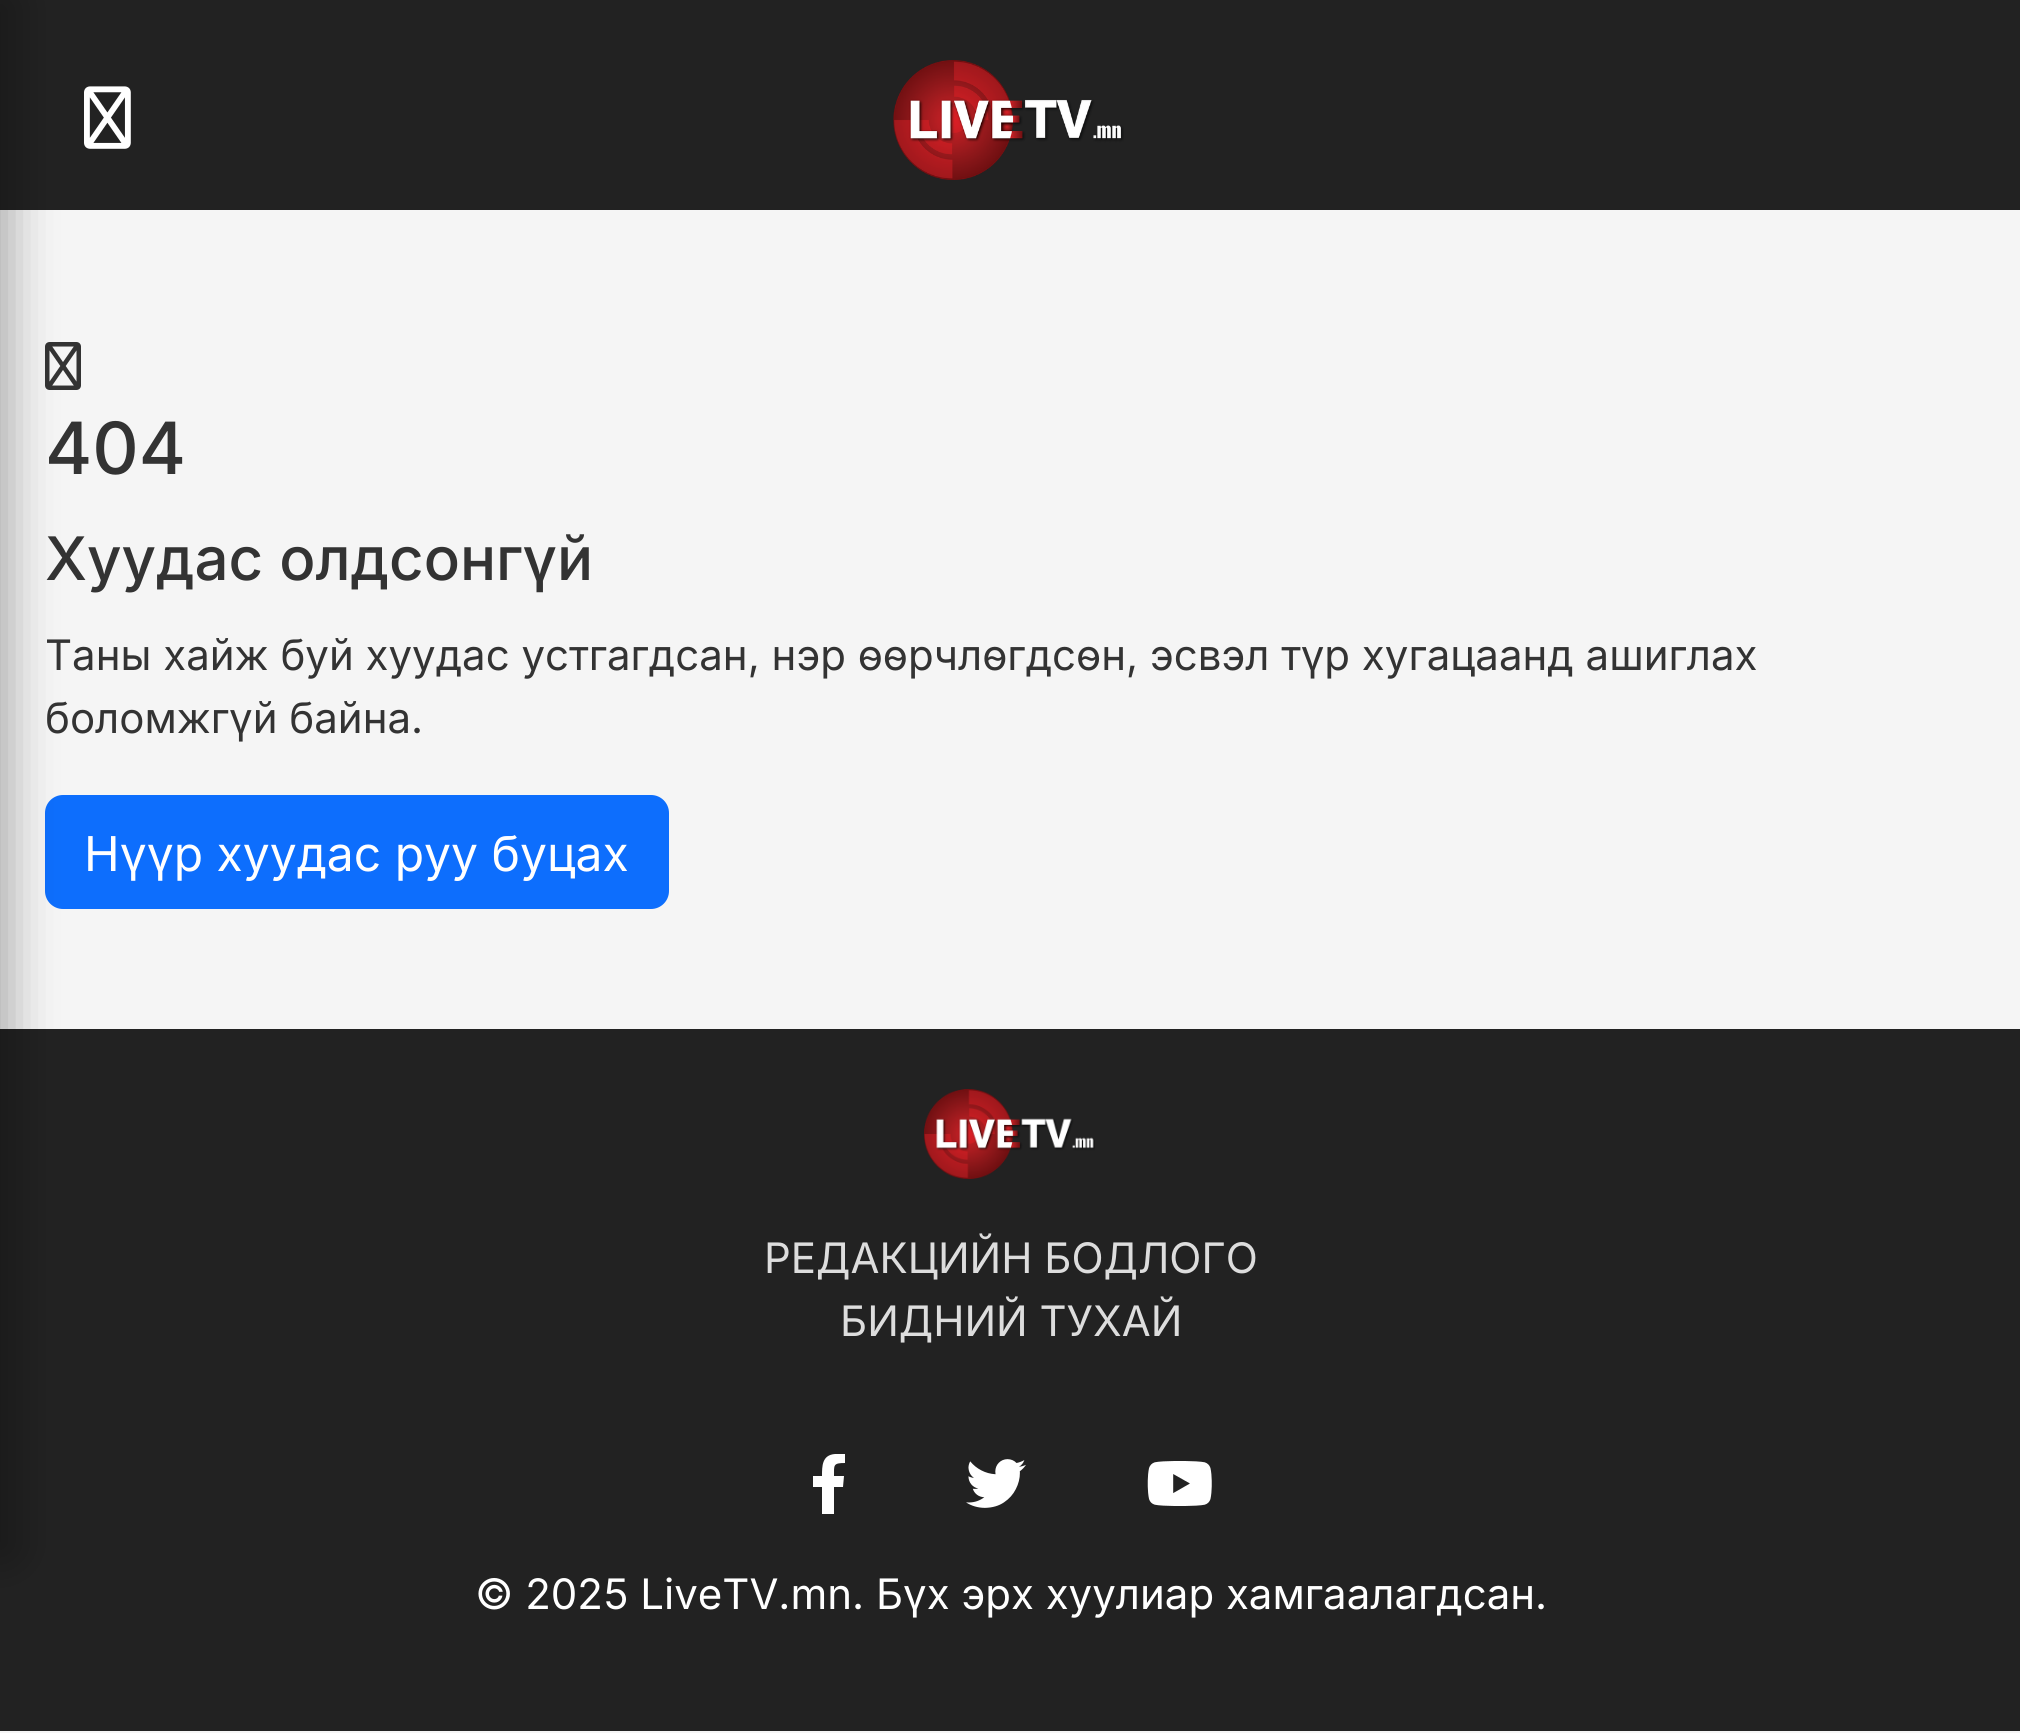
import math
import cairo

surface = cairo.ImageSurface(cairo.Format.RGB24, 2020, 1733)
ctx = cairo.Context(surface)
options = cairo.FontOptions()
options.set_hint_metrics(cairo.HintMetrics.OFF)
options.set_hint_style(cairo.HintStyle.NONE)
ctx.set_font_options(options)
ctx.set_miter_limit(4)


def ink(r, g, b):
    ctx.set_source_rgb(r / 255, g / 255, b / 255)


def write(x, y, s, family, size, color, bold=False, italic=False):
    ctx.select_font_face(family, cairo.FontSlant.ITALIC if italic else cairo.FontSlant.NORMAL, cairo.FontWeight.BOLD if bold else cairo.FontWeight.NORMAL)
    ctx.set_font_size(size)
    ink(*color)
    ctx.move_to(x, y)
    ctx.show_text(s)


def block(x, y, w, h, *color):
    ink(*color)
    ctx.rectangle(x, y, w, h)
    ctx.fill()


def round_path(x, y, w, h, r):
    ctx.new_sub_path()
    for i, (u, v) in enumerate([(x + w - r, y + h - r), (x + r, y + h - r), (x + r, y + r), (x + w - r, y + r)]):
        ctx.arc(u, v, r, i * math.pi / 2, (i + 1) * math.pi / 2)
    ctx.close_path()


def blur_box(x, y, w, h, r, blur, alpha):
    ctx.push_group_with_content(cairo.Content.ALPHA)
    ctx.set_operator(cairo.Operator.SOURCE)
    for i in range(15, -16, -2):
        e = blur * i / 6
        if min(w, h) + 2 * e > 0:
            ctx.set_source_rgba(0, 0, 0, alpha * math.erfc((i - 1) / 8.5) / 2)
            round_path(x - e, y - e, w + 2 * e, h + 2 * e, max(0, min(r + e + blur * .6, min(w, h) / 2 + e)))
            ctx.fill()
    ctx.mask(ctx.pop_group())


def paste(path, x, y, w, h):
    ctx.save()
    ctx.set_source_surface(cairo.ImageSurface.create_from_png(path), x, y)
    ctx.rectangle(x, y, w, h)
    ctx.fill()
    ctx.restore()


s1 = dict(family="Inter Medium", size=72, color=(51, 51, 51))
s2 = dict(family="Inter Medium", size=60, color=(51, 51, 51))
s3 = dict(family="Inter", size=42, color=(51, 51, 51))
s4 = dict(family="Inter", size=48, color=(255, 255, 255))
s5 = dict(family="Inter", size=42, color=(221, 221, 221))
s6 = dict(family="Inter", size=42, color=(255, 255, 255))

ink(245, 245, 245)
ctx.paint()
block(0, 0, 2020, 210, 34, 34, 34)
paste("pic1.png", 84, 86, 47, 63)
paste("pic2.png", 893, 60, 231, 120)
paste("pic3.png", 45, 342, 36, 48)
ink(13, 110, 253)
round_path(46.5, 796.5, 621, 111, 16.5)
ctx.fill_preserve()
ctx.set_line_width(3)
ctx.stroke()
block(0, 1029, 2020, 702, 34, 34, 34)
ink(0, 0, 0)
blur_box(-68, 0, 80, 1554, 0, 22.5, 0.3)
write(45, 474, "404", **s1)
write(45, 580, "Хуудас олдсонгүй", **s2)
write(45, 670, "Таны хайж буй хуудас устгагдсан, нэр өөрчлөгдсөн, эсвэл түр хугацаанд ашиглах", **s3)
write(45, 733, "боломжгүй байна.", **s3)
write(84, 871, "Нүүр хуудас руу буцах", **s4)
paste("pic4.png", 924, 1089, 171, 90)
write(764, 1273, "РЕДАКЦИЙН БОДЛОГО", **s5)
write(840, 1336, "БИДНИЙ ТУХАЙ", **s5)
ink(255, 255, 255)
ctx.new_path()
ctx.move_to(843, 1487)
ctx.line_to(844, 1476)
ctx.line_to(834, 1476)
ctx.curve_to(834, 1465, 833, 1463, 845, 1463)
ctx.line_to(845, 1454)
ctx.line_to(835, 1454)
ctx.curve_to(822, 1455, 822, 1466, 822, 1476)
ctx.line_to(813, 1476)
ctx.line_to(813, 1487)
ctx.line_to(822, 1487)
ctx.line_to(822, 1514)
ctx.line_to(834, 1514)
ctx.line_to(834, 1487)
ctx.close_path()
ctx.fill()
paste("pic5.png", 966, 1459, 60, 49)
paste("pic6.png", 1147, 1461, 65, 45)
write(475, 1609, "© 2025 LiveTV.mn. Бүх эрх хуулиар хамгаалагдсан.", **s6)
surface.write_to_png("screenshot.png")
